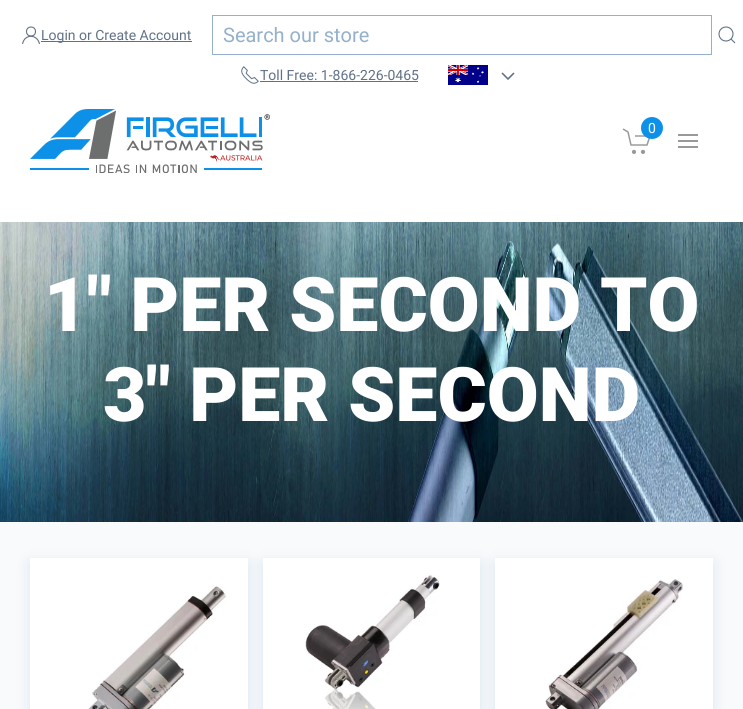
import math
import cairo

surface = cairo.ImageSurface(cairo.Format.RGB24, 743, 709)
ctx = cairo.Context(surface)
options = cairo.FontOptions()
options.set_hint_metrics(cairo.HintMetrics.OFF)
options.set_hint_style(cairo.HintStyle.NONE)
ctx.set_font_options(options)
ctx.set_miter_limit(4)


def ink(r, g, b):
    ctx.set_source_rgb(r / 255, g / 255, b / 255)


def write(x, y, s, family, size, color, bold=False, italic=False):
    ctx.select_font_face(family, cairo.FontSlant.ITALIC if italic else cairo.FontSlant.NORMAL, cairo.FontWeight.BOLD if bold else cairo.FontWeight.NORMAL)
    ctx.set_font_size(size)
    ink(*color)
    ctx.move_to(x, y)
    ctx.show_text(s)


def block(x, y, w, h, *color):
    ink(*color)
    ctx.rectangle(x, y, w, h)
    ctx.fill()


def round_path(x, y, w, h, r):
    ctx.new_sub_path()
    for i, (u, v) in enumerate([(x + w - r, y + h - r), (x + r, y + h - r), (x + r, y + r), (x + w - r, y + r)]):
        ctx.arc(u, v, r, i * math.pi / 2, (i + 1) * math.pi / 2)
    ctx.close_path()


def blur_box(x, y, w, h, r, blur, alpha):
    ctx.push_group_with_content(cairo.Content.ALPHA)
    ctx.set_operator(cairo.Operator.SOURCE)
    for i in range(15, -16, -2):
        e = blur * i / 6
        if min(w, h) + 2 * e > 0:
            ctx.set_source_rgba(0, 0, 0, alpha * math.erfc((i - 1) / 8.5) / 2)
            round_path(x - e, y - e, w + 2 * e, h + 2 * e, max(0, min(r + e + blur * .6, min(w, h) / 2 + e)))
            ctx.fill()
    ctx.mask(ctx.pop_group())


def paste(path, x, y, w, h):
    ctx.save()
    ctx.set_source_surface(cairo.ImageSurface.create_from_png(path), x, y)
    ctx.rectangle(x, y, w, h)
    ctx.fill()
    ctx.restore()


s1 = dict(family="Roboto", size=14, color=(96, 113, 136))
s2 = dict(family="Roboto", size=20, color=(148, 176, 202))
s3 = dict(family="Roboto", size=14, color=(255, 255, 255))
s4 = dict(family="Roboto Black", size=75.25, color=(255, 255, 255))

ink(255, 255, 255)
ctx.paint()
ctx.arc(31, 31.5, 4.5, 0, 2 * math.pi)
ink(96, 113, 136)
ctx.set_line_width(1.1)
ctx.stroke()
ctx.new_path()
ctx.move_to(22.5, 44)
ctx.curve_to(24.5, 33.5, 37.5, 34, 39.5, 44)
ctx.stroke()
block(41, 41, 151, 1, 109, 110, 110)
write(41, 40, "Login or Create Account", **s1)
ctx.rectangle(212.5, 15.5, 499, 39)
ink(148, 176, 202)
ctx.set_line_width(1)
ctx.stroke()
write(223, 42, "Search our store", **s2)
ctx.new_path()
ctx.arc(726, 34, 7, 0, 2 * math.pi)
ink(96, 113, 136)
ctx.set_line_width(1.1)
ctx.stroke()
ctx.new_path()
ctx.move_to(731, 39)
ctx.line_to(735, 43)
ctx.close_path()
ctx.stroke()
paste("pic1.png", 241, 66, 18, 18)
write(260, 80, "Toll Free: 1-866-226-0465", **s1)
block(260, 81, 158, 1, 109, 110, 110)
paste("pic2.png", 448, 65, 40, 20)
ctx.new_path()
ctx.move_to(514, 73)
ctx.line_to(508, 79)
ctx.line_to(502, 73)
ink(96, 113, 136)
ctx.set_line_width(1.6)
ctx.stroke()
paste("pic3.png", 30, 109, 240, 64)
ctx.new_path()
ctx.move_to(623, 129)
ctx.line_to(628, 132)
ctx.line_to(631, 145)
ctx.line_to(647, 145)
ctx.line_to(650, 136)
ctx.line_to(635, 136)
ink(153, 153, 153)
ctx.set_line_width(1.5)
ctx.stroke()
ctx.arc(634, 151.9, 2.1, 0, 2 * math.pi)
ctx.fill()
ctx.arc(643, 151.9, 2.1, 0, 2 * math.pi)
ctx.fill()
ink(13, 144, 232)
ctx.arc(652, 128, 11, 0, 2 * math.pi)
ctx.fill()
write(648, 133, "0", **s3)
block(678, 140, 20, 2, 153, 153, 153)
block(678, 134, 20, 2, 153, 153, 153)
block(678, 146, 20, 2, 153, 153, 153)
paste("pic4.png", 0, 222, 743, 300)
write(44, 331, "1\" PER SECOND TO", **s4)
write(103, 421, "3\" PER SECOND", **s4)
block(0, 522, 743, 187, 249, 250, 251)
ink(33, 125, 187)
blur_box(30, 563, 218, 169, 0, 7.5, 0.15)
block(30, 558, 218, 151, 255, 255, 255)
paste("pic5.png", 88, 584, 139, 125)
ink(33, 125, 187)
blur_box(263, 563, 217, 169, 0, 7.5, 0.15)
block(263, 558, 217, 151, 255, 255, 255)
paste("pic6.png", 305, 575, 135, 134)
ink(33, 125, 187)
blur_box(495, 563, 218, 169, 0, 7.5, 0.15)
block(495, 558, 218, 151, 255, 255, 255)
paste("pic7.png", 545, 579, 139, 130)
surface.write_to_png("screenshot.png")
